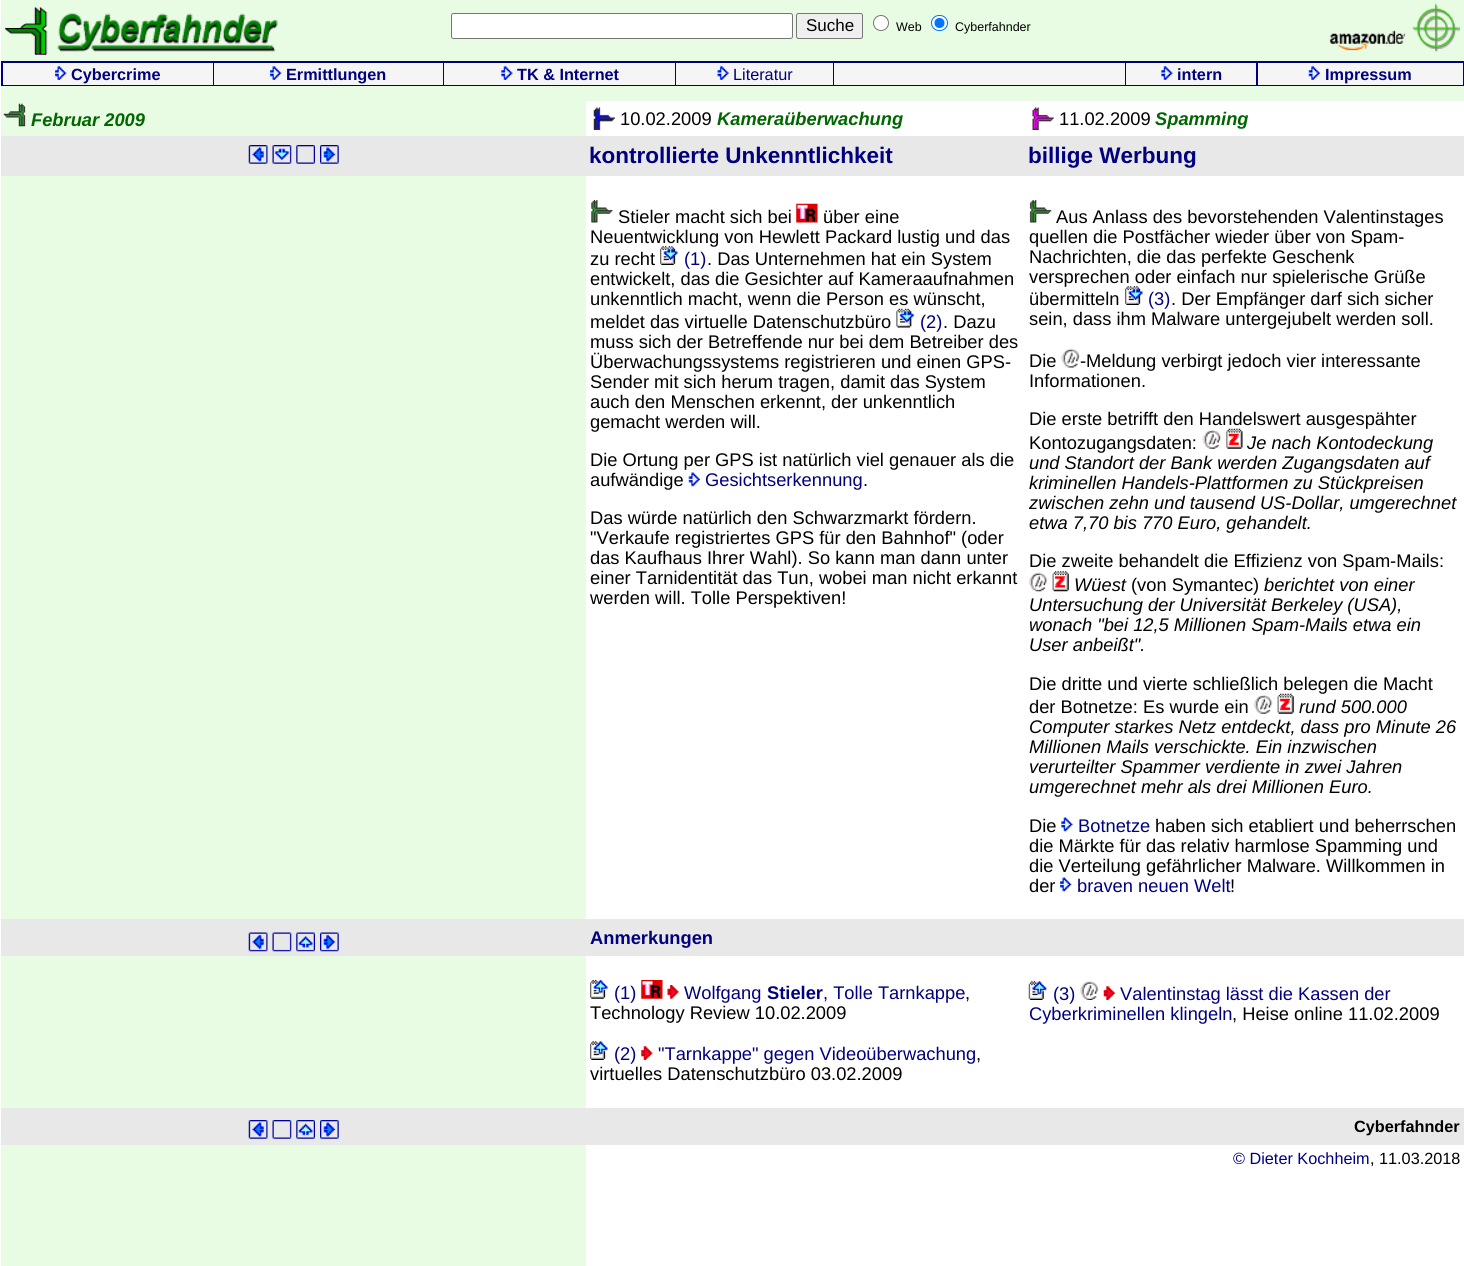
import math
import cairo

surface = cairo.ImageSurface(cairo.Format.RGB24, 1464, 1266)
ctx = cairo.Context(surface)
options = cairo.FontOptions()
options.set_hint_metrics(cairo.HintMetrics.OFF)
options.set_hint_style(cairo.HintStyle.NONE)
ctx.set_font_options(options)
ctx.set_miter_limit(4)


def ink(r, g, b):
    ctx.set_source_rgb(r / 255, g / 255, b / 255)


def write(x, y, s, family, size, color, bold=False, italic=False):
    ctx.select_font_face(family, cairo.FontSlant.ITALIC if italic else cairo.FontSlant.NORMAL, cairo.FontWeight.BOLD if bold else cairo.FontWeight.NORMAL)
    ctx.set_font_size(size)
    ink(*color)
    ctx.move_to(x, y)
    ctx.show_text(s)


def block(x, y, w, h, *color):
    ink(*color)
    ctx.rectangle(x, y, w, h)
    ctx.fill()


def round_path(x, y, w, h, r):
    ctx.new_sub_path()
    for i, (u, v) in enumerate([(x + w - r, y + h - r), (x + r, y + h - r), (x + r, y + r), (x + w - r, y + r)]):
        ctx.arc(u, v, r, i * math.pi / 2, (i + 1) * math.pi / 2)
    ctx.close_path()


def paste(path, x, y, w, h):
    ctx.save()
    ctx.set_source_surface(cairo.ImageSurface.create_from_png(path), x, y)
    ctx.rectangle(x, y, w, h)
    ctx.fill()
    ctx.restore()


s1 = dict(family="Liberation Sans", size=17, color=(0, 0, 0))
s2 = dict(family="Liberation Sans", size=12.5, color=(0, 0, 0))
s3 = dict(family="Liberation Sans", size=16.25, color=(0, 0, 128), bold=True)
s4 = dict(family="Liberation Sans", size=16.25, color=(0, 0, 128))
s5 = dict(family="Liberation Sans", size=18.3, color=(0, 102, 0), bold=True, italic=True)
s6 = dict(family="Liberation Sans", size=18.3, color=(0, 0, 0))
s7 = dict(family="Liberation Sans", size=22.5, color=(0, 0, 128), bold=True)
s8 = dict(family="Liberation Sans", size=18.3, color=(0, 0, 128))
s9 = dict(family="Liberation Sans", size=18.3, color=(0, 0, 0), italic=True)
s10 = dict(family="Liberation Sans", size=18.3, color=(0, 0, 128), bold=True)
s11 = dict(family="Liberation Sans", size=16.25, color=(0, 0, 0), bold=True)
s12 = dict(family="Liberation Sans", size=16.25, color=(0, 0, 0))

ink(255, 255, 255)
ctx.paint()
block(1, 0, 1463, 61, 231, 252, 226)
paste("pic1.png", 5, 7, 43, 48)
paste("pic2.png", 57, 12, 221, 40)
ink(255, 255, 255)
round_path(451.5, 13.5, 341, 25, 2)
ctx.fill_preserve()
ink(118, 118, 118)
ctx.set_line_width(1)
ctx.stroke()
ink(239, 239, 239)
round_path(796.5, 13.5, 66, 25, 2)
ctx.fill_preserve()
ink(118, 118, 118)
ctx.stroke()
write(806, 31, "Suche", **s1)
ink(255, 255, 255)
ctx.new_path()
ctx.arc(881, 23, 7.5, 0, 2 * math.pi)
ctx.fill_preserve()
ink(118, 118, 118)
ctx.stroke()
write(896, 31, "Web", **s2)
ink(255, 255, 255)
round_path(931.5, 15.5, 16, 15, 7.5)
ctx.fill_preserve()
ink(0, 117, 255)
ctx.stroke()
ctx.arc(939.5, 23, 5, 0, 2 * math.pi)
ctx.fill()
write(955, 31, "Cyberfahnder", **s2)
paste("pic3.png", 1329, 30, 77, 21)
paste("pic4.png", 1412, 3, 48, 49)
block(1, 61, 1463, 25, 0, 0, 128)
block(3, 63, 210, 22, 245, 245, 245)
paste("pic5.png", 55, 66, 12, 14)
write(71, 80, "Cybercrime", **s3)
block(214, 63, 229, 22, 245, 245, 245)
paste("pic6.png", 270, 66, 12, 14)
write(286, 80, "Ermittlungen", **s3)
block(444, 63, 231, 22, 245, 245, 245)
paste("pic7.png", 501, 66, 12, 14)
write(517, 80, "TK & Internet", **s3)
block(676, 63, 157, 22, 245, 245, 245)
paste("pic8.png", 717, 66, 12, 14)
write(733, 80, "Literatur", **s4)
block(834, 63, 291, 22, 245, 245, 245)
block(1126, 63, 130, 22, 245, 245, 245)
paste("pic7.png", 1161, 66, 12, 14)
write(1177, 80, "intern", **s3)
block(1258, 63, 205, 22, 245, 245, 245)
paste("pic9.png", 1308, 66, 12, 14)
write(1325, 80, "Impressum", **s3)
block(1, 86, 1463, 15, 231, 252, 226)
block(1, 101, 585, 35, 231, 252, 226)
paste("pic10.png", 3, 103, 23, 24)
write(31, 126, "Februar 2009", **s5)
paste("pic11.png", 593, 107, 22, 23)
write(620, 125, "10.02.2009", **s6)
write(717, 125, "Kameraüberwachung", **s5)
paste("pic12.png", 1032, 107, 22, 23)
write(1059, 125, "11.02.2009", **s6)
write(1155, 125, "Spamming", **s5)
block(1, 136, 1463, 40, 232, 232, 232)
paste("pic13.png", 248, 145, 20, 19)
paste("pic14.png", 272, 145, 20, 19)
paste("pic15.png", 296, 145, 19, 19)
paste("pic16.png", 320, 145, 19, 19)
write(589, 163, "kontrollierte Unkenntlichkeit", **s7)
write(1028, 163, "billige Werbung", **s7)
block(1, 176, 585, 743, 231, 252, 226)
paste("pic17.png", 591, 200, 22, 23)
write(618, 223, "Stieler macht sich bei", **s6)
paste("pic18.png", 796, 203, 22, 20)
write(823, 223, "über eine", **s6)
write(590, 243, "Neuentwicklung von Hewlett Packard lustig und das", **s6)
write(590, 265, "zu recht", **s6)
paste("pic19.png", 660, 246, 18, 19)
write(684, 265, "(1)", **s8)
write(707, 265, ". Das Unternehmen hat ein System", **s6)
write(590, 285, "entwickelt, das die Gesichter auf Kameraaufnahmen", **s6)
write(590, 305, "unkenntlich macht, wenn die Person es wünscht,", **s6)
write(590, 328, "meldet das virtuelle Datenschutzbüro", **s6)
paste("pic20.png", 896, 308, 18, 20)
write(920, 328, "(2)", **s8)
write(943, 328, ". Dazu", **s6)
write(590, 348, "muss sich der Betreffende nur bei dem Betreiber des", **s6)
write(590, 368, "Überwachungssystems registrieren und einen GPS-", **s6)
write(590, 388, "Sender mit sich herum tragen, damit das System", **s6)
write(590, 408, "auch den Menschen erkennt, der unkenntlich", **s6)
write(590, 428, "gemacht werden will.", **s6)
write(590, 466, "Die Ortung per GPS ist natürlich viel genauer als die", **s6)
write(590, 486, "aufwändige", **s6)
paste("pic21.png", 688, 472, 12, 15)
write(705, 486, "Gesichtserkennung", **s8)
write(863, 486, ".", **s6)
write(590, 524, "Das würde natürlich den Schwarzmarkt fördern.", **s6)
write(590, 544, "\"Verkaufe registriertes GPS für den Bahnhof\" (oder", **s6)
write(590, 564, "das Kaufhaus Ihrer Wahl). So kann man dann unter", **s6)
write(590, 584, "einer Tarnidentität das Tun, wobei man nicht erkannt", **s6)
write(590, 604, "werden will. Tolle Perspektiven!", **s6)
paste("pic22.png", 1029, 200, 23, 23)
write(1056, 223, "Aus Anlass des bevorstehenden Valentinstages", **s6)
write(1029, 243, "quellen die Postfächer wieder über von Spam-", **s6)
write(1029, 263, "Nachrichten, die das perfekte Geschenk", **s6)
write(1029, 283, "versprechen oder einfach nur spielerische Grüße", **s6)
write(1029, 305, "übermitteln", **s6)
paste("pic23.png", 1125, 286, 18, 19)
write(1148, 305, "(3)", **s8)
write(1171, 305, ". Der Empfänger darf sich sicher", **s6)
write(1029, 325, "sein, dass ihm Malware untergejubelt werden soll.", **s6)
write(1029, 367, "Die", **s6)
paste("pic24.png", 1061, 348, 19, 20)
write(1080, 367, "-Meldung verbirgt jedoch vier interessante", **s6)
write(1029, 387, "Informationen.", **s6)
write(1029, 425, "Die erste betrifft den Handelswert ausgespähter", **s6)
write(1029, 449, "Kontozugangsdaten:", **s6)
paste("pic25.png", 1202, 430, 20, 19)
paste("pic26.png", 1226, 428, 17, 21)
write(1247, 449, "Je nach Kontodeckung", **s9)
write(1029, 469, "und Standort der Bank werden Zugangsdaten auf", **s9)
write(1029, 489, "kriminellen Handels-Plattformen zu Stückpreisen", **s9)
write(1029, 509, "zwischen zehn und tausend US-Dollar, umgerechnet", **s9)
write(1029, 529, "etwa 7,70 bis 770 Euro, gehandelt.", **s9)
write(1029, 567, "Die zweite behandelt die Effizienz von Spam-Mails:", **s6)
paste("pic27.png", 1028, 572, 20, 20)
paste("pic28.png", 1052, 571, 17, 21)
write(1074, 591, "Wüest", **s9)
write(1131, 591, "(von Symantec)", **s6)
write(1264, 591, "berichtet von einer", **s9)
write(1029, 611, "Untersuchung der Universität Berkeley (USA),", **s9)
write(1029, 631, "wonach \"bei 12,5 Millionen Spam-Mails etwa ein", **s9)
write(1029, 651, "User anbeißt\".", **s9)
write(1029, 690, "Die dritte und vierte schließlich belegen die Macht", **s6)
write(1029, 713, "der Botnetze: Es wurde ein", **s6)
paste("pic29.png", 1253, 695, 20, 19)
paste("pic30.png", 1277, 693, 17, 21)
write(1299, 713, "rund 500.000", **s9)
write(1029, 733, "Computer starkes Netz entdeckt, dass pro Minute 26", **s9)
write(1029, 753, "Millionen Mails verschickte. Ein inzwischen", **s9)
write(1029, 773, "verurteilter Spammer verdiente in zwei Jahren", **s9)
write(1029, 793, "umgerechnet mehr als drei Millionen Euro.", **s9)
write(1029, 832, "Die", **s6)
paste("pic31.png", 1061, 817, 12, 15)
write(1078, 832, "Botnetze", **s8)
write(1155, 832, "haben sich etabliert und beherrschen", **s6)
write(1029, 852, "die Märkte für das relativ harmlose Spamming und", **s6)
write(1029, 872, "die Verteilung gefährlicher Malware. Willkommen in", **s6)
write(1029, 892, "der", **s6)
paste("pic32.png", 1060, 877, 12, 15)
write(1077, 892, "braven neuen Welt", **s8)
write(1230, 892, "!", **s6)
block(1, 919, 1463, 37, 232, 232, 232)
paste("pic33.png", 248, 932, 20, 20)
paste("pic34.png", 272, 932, 20, 20)
paste("pic35.png", 296, 932, 19, 20)
paste("pic36.png", 320, 932, 19, 20)
write(590, 944, "Anmerkungen", **s10)
block(1, 956, 585, 152, 231, 252, 226)
paste("pic37.png", 590, 980, 18, 19)
write(614, 999, "(1)", **s8)
paste("pic38.png", 641, 980, 22, 19)
paste("pic39.png", 667, 985, 12, 14)
write(684, 999, "Wolfgang", **s8)
write(767, 999, "Stieler", **s10)
write(823, 999, ", Tolle Tarnkappe", **s8)
write(965, 999, ",", **s6)
write(590, 1019, "Technology Review 10.02.2009", **s6)
paste("pic40.png", 590, 1041, 18, 19)
write(614, 1060, "(2)", **s8)
paste("pic41.png", 641, 1046, 12, 14)
write(658, 1060, "\"Tarnkappe\" gegen Videoüberwachung", **s8)
write(976, 1060, ",", **s6)
write(590, 1080, "virtuelles Datenschutzbüro 03.02.2009", **s6)
paste("pic42.png", 1028, 981, 19, 19)
write(1053, 1000, "(3)", **s8)
paste("pic43.png", 1080, 981, 19, 19)
paste("pic44.png", 1103, 986, 12, 14)
write(1120, 1000, "Valentinstag lässt die Kassen der", **s8)
write(1029, 1020, "Cyberkriminellen klingeln", **s8)
write(1232, 1020, ", Heise online 11.02.2009", **s6)
block(1, 1108, 1463, 37, 232, 232, 232)
paste("pic13.png", 248, 1120, 20, 19)
paste("pic45.png", 272, 1120, 20, 19)
paste("pic46.png", 296, 1120, 19, 19)
paste("pic16.png", 320, 1120, 19, 19)
write(1354, 1132, "Cyberfahnder", **s11)
block(1, 1145, 585, 121, 231, 252, 226)
write(1233, 1164, "© Dieter Kochheim", **s4)
write(1370, 1164, ", 11.03.2018", **s12)
surface.write_to_png("screenshot.png")
